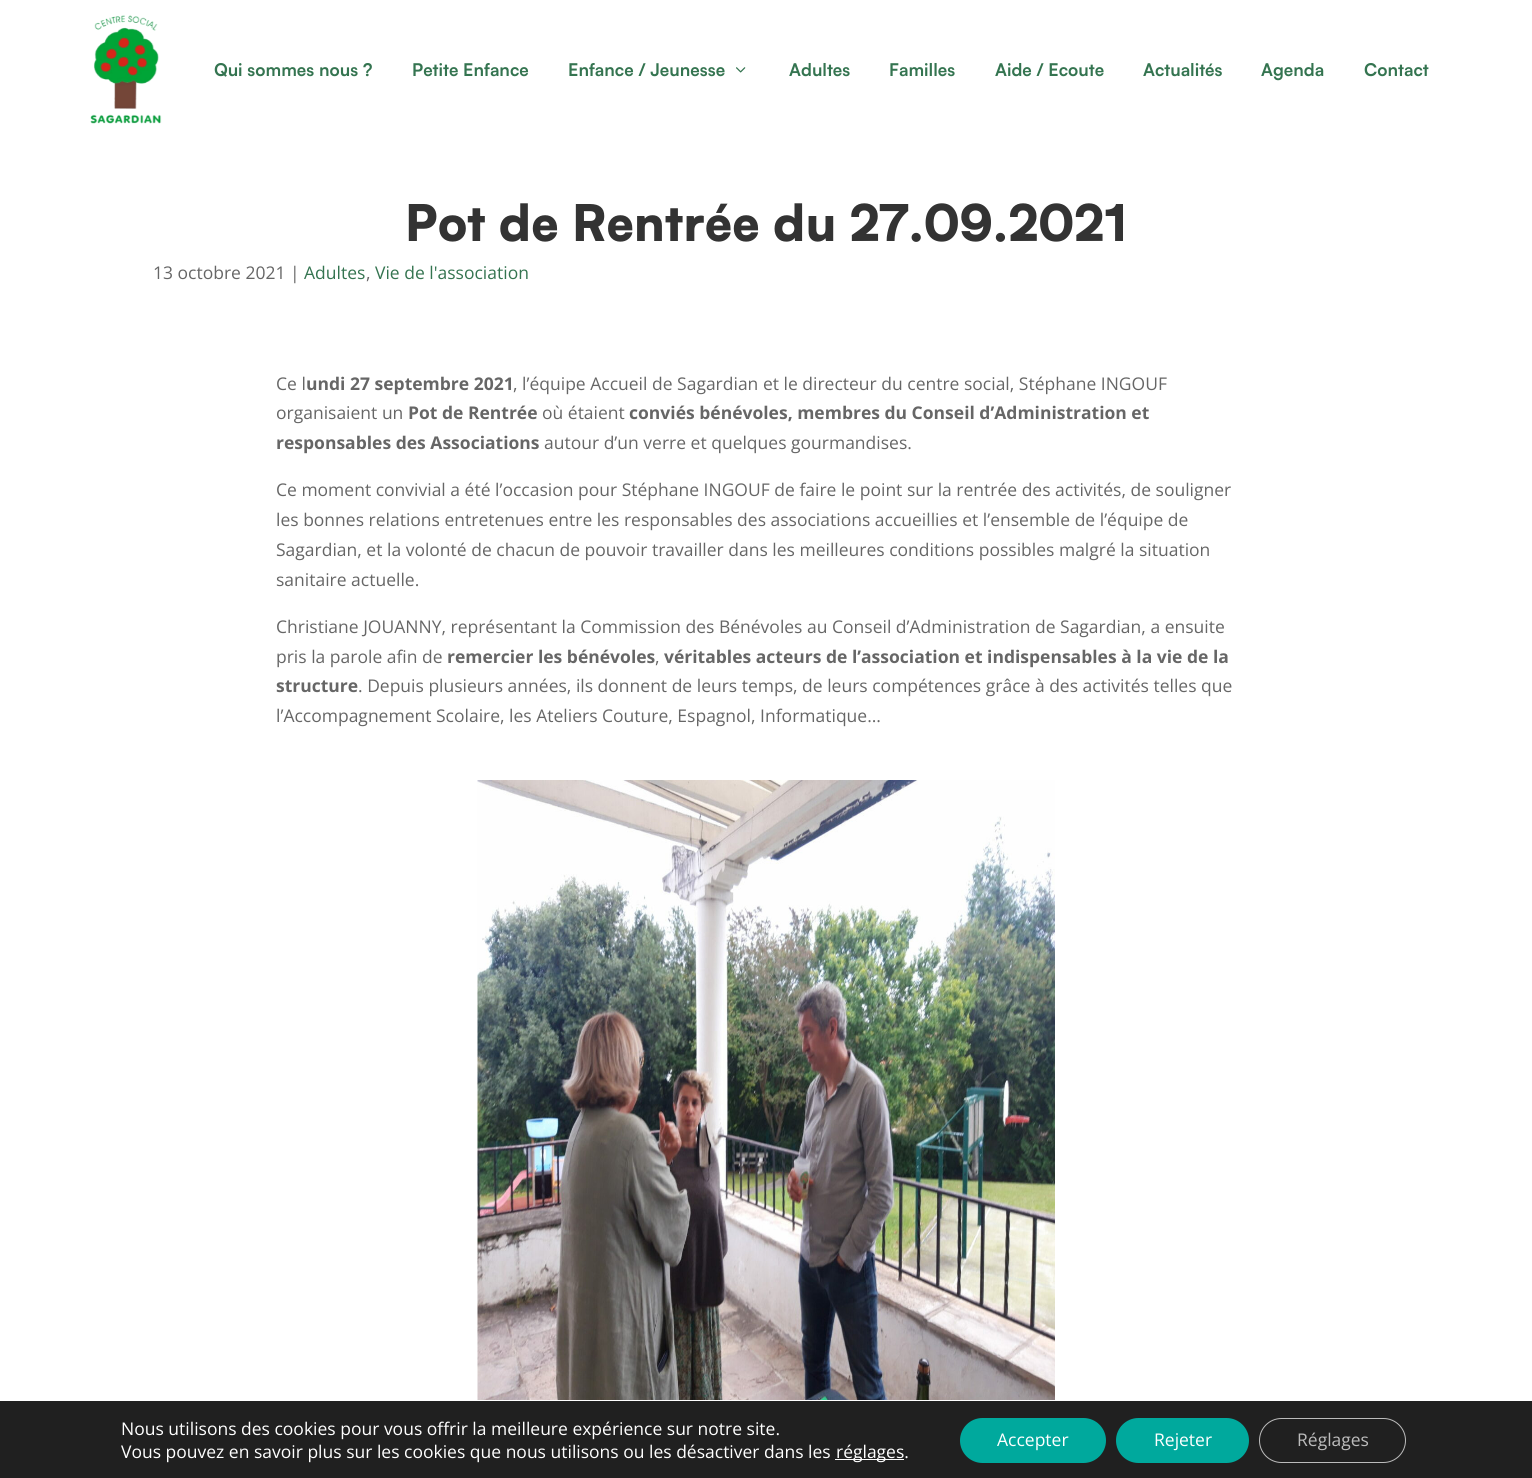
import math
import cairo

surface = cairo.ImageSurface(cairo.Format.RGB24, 1532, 1478)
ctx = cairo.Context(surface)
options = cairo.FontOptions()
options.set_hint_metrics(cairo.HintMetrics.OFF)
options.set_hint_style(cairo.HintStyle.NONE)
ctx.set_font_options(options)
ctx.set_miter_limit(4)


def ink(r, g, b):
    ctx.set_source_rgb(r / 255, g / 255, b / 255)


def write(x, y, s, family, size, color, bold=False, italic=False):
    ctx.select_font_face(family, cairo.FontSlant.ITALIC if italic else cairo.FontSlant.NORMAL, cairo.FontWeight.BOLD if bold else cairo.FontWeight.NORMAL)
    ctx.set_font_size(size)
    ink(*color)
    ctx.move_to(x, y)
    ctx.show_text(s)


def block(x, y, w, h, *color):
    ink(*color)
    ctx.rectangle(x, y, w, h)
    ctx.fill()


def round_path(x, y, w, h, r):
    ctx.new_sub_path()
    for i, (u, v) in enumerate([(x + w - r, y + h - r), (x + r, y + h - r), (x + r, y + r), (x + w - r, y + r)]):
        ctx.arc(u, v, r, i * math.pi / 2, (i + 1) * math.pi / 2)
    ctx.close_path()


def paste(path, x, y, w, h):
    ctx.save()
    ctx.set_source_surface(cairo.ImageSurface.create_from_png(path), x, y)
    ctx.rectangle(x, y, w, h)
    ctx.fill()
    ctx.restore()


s1 = dict(family="Satoshi", size=17.5, color=(52, 116, 80), bold=True)
s2 = dict(family="Satoshi Black", size=50, color=(51, 51, 51))
s3 = dict(family="Open Sans", size=17.5, color=(102, 102, 102))
s4 = dict(family="Open Sans", size=17.5, color=(52, 116, 80))
s5 = dict(family="Open Sans", size=17.5, color=(102, 102, 102), bold=True)
s6 = dict(family="Open Sans", size=17.5, color=(255, 255, 255))
s7 = dict(family="Open Sans", size=17.5, color=(188, 188, 188))

ink(255, 255, 255)
ctx.paint()
paste("pic1.png", 90, 15, 72, 109)
write(214, 76, "Qui sommes nous ?", **s1)
write(412, 76, "Petite Enfance", **s1)
write(568, 76, "Enfance / Jeunesse", **s1)
paste("pic2.png", 736, 67, 10, 6)
write(789, 76, "Adultes", **s1)
write(889, 76, "Familles", **s1)
write(995, 76, "Aide / Ecoute", **s1)
write(1143, 76, "Actualités", **s1)
write(1261, 76, "Agenda", **s1)
write(1364, 76, "Contact", **s1)
write(405, 241, "Pot de Rentrée du 27.09.2021", **s2)
write(153, 279, "13 octobre 2021 |", **s3)
write(304, 279, "Adultes", **s4)
write(366, 279, ",", **s3)
write(375, 279, "Vie de l'association", **s4)
write(276, 390, "Ce l", **s3)
write(306, 390, "undi 27 septembre 2021", **s5)
write(513, 390, ", l’équipe Accueil de Sagardian et le directeur du centre social, Stéphane INGOUF", **s3)
write(276, 419, "organisaient un", **s3)
write(408, 419, "Pot de Rentrée", **s5)
write(542, 419, "où étaient", **s3)
write(629, 419, "conviés bénévoles, membres du Conseil d’Administration et", **s5)
write(276, 449, "responsables des Associations", **s5)
write(544, 449, "autour d’un verre et quelques gourmandises.", **s3)
write(276, 496, "Ce moment convivial a été l’occasion pour Stéphane INGOUF de faire le point sur la rentrée des activités, de souligner", **s3)
write(276, 526, "les bonnes relations entretenues entre les responsables des associations accueillies et l’ensemble de l’équipe de", **s3)
write(276, 556, "Sagardian, et la volonté de chacun de pouvoir travailler dans les meilleures conditions possibles malgré la situation", **s3)
write(276, 586, "sanitaire actuelle.", **s3)
write(276, 633, "Christiane JOUANNY, représentant la Commission des Bénévoles au Conseil d’Administration de Sagardian, a ensuite", **s3)
write(276, 663, "pris la parole afin de", **s3)
write(447, 663, "remercier les bénévoles", **s5)
write(655, 663, ",", **s3)
write(664, 663, "véritables acteurs de l’association et indispensables à la vie de la", **s5)
write(276, 692, "structure", **s5)
write(358, 692, ". Depuis plusieurs années, ils donnent de leurs temps, de leurs compétences grâce à des activités telles que", **s3)
write(276, 722, "l’Accompagnement Scolaire, les Ateliers Couture, Espagnol, Informatique…", **s3)
paste("pic3.png", 477, 780, 578, 620)
block(0, 1401, 1532, 77, 32, 32, 32)
write(121, 1435, "Nous utilisons des cookies pour vous offrir la meilleure expérience sur notre site.", **s6)
write(121, 1458, "Vous pouvez en savoir plus sur les cookies que nous utilisons ou les désactiver dans les", **s6)
block(835, 1459, 69, 1, 255, 255, 255)
write(836, 1458, "réglages.", **s6)
ink(0, 169, 157)
round_path(960, 1418, 146, 45, 22.5)
ctx.fill()
write(997, 1446, "Accepter", **s6)
ink(0, 169, 157)
round_path(1116, 1418, 133, 45, 22.5)
ctx.fill()
write(1154, 1446, "Rejeter", **s6)
round_path(1259.5, 1418.5, 146, 44, 22)
ink(188, 188, 188)
ctx.set_line_width(1)
ctx.stroke()
write(1297, 1446, "Réglages", **s7)
surface.write_to_png("screenshot.png")
